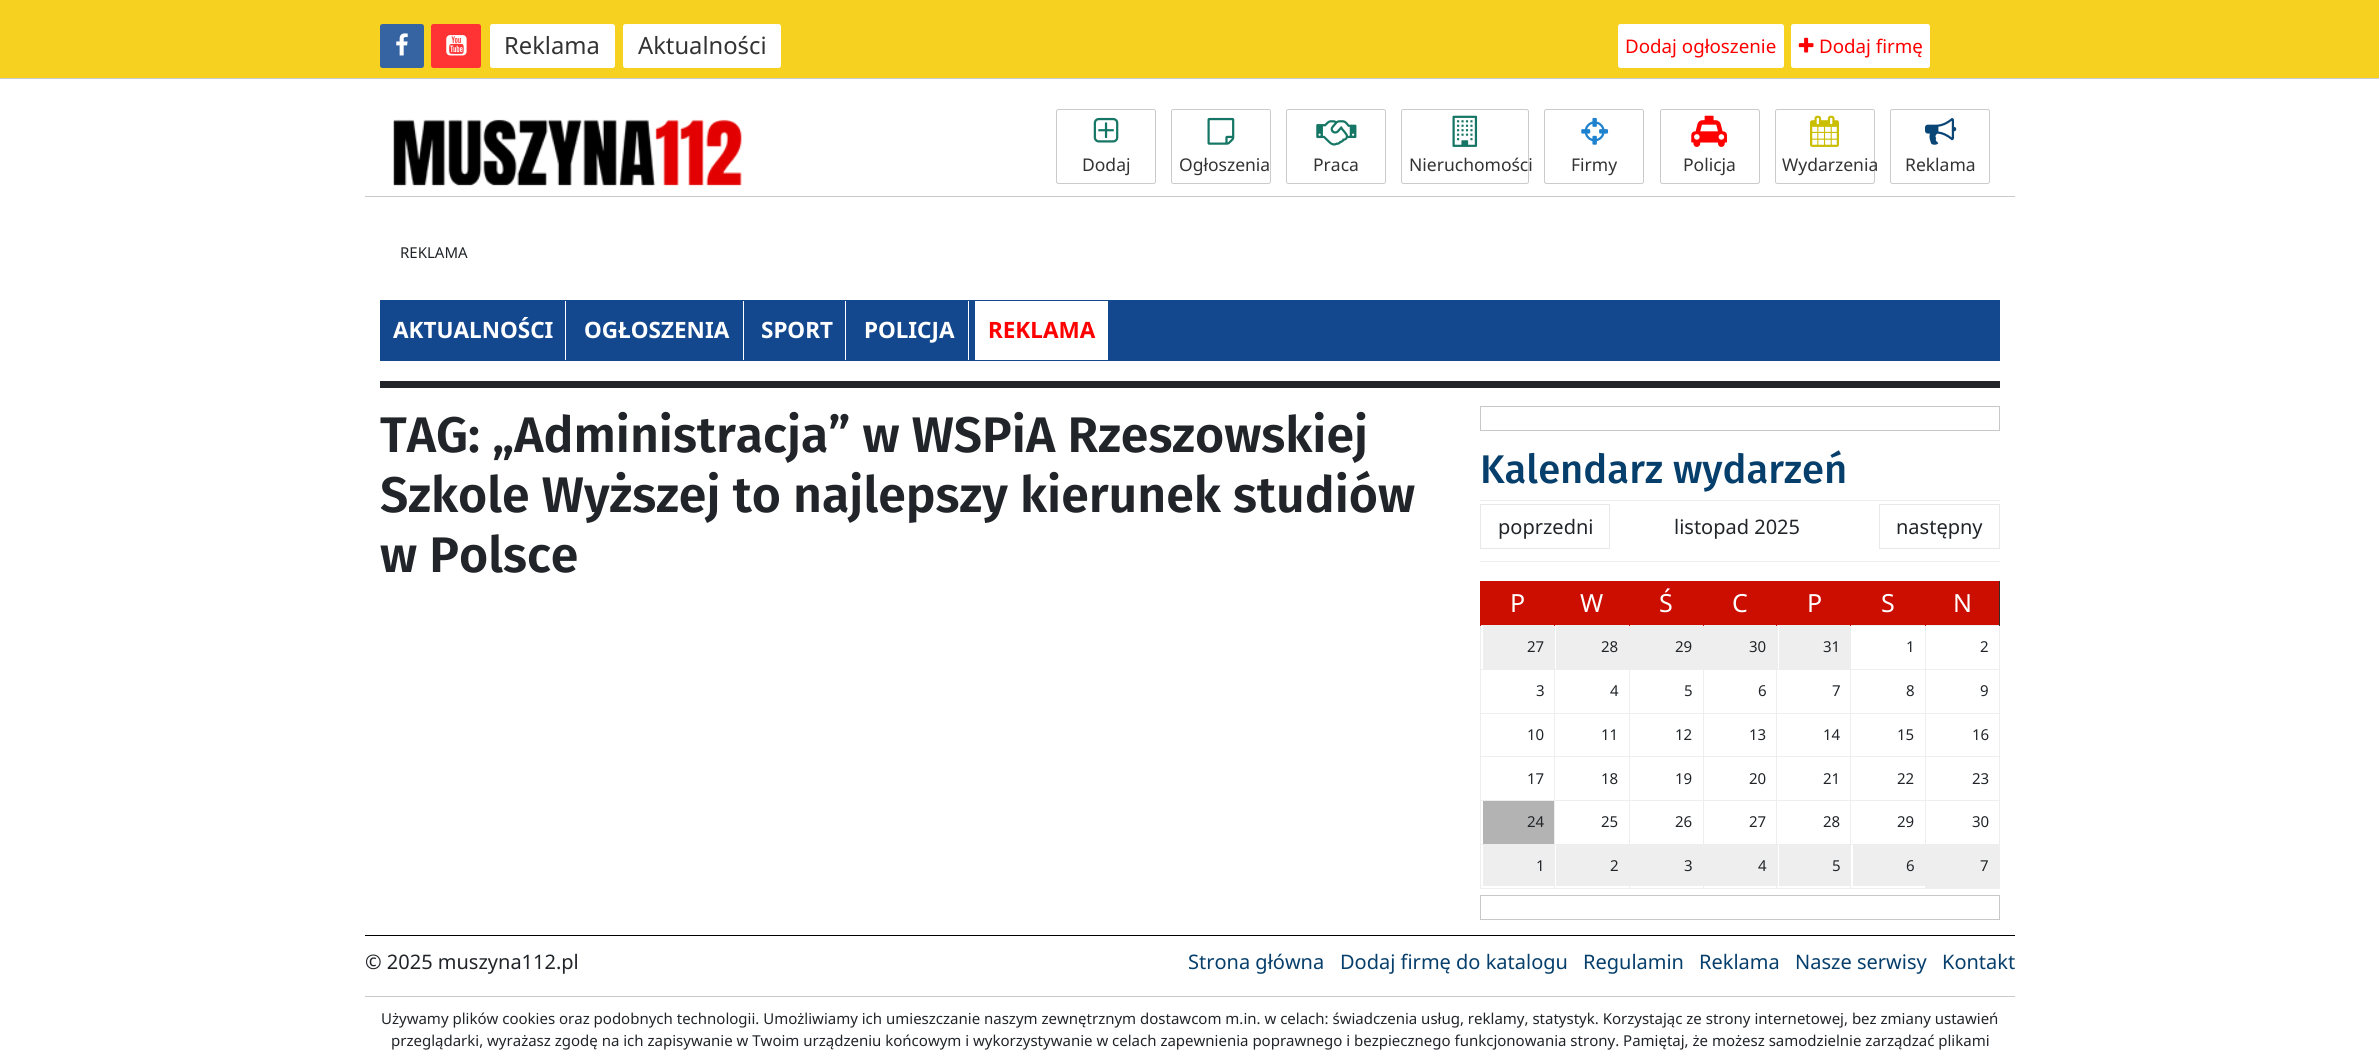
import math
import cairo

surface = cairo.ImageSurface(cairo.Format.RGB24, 2379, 1056)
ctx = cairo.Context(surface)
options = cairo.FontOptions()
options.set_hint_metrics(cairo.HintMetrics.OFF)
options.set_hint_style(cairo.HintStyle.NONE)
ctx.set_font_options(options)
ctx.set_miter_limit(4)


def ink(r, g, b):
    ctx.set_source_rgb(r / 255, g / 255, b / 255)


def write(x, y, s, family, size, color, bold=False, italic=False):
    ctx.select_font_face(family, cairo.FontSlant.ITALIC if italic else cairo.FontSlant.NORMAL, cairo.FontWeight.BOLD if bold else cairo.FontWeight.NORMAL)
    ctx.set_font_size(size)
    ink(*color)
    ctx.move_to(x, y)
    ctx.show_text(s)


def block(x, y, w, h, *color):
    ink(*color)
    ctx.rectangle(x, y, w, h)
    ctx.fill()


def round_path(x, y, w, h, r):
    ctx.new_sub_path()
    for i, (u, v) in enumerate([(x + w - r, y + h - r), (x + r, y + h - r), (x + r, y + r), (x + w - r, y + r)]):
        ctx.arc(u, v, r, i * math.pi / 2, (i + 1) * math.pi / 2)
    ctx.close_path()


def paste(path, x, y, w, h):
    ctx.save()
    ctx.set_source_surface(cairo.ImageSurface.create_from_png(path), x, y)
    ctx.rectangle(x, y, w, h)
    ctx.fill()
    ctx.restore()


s1 = dict(family="Noto Sans", size=23.75, color=(51, 51, 51))
s2 = dict(family="Noto Sans", size=18.75, color=(255, 0, 0))
s3 = dict(family="Noto Sans", size=17.5, color=(51, 51, 51))
s4 = dict(family="Noto Sans", size=15, color=(33, 37, 41))
s5 = dict(family="Noto Sans", size=22.5, color=(255, 255, 255), bold=True)
s6 = dict(family="Noto Sans", size=22.5, color=(255, 0, 0), bold=True)
s7 = dict(family="Fira Sans SemiBold", size=50, color=(33, 37, 41))
s8 = dict(family="Fira Sans Medium", size=40, color=(6, 63, 108))
s9 = dict(family="Noto Sans", size=20, color=(33, 37, 41))
s10 = dict(family="Noto Sans", size=25, color=(255, 255, 255))
s11 = dict(family="Noto Sans", size=20, color=(6, 63, 108))

ink(255, 255, 255)
ctx.paint()
block(0, 0, 2379, 78, 247, 209, 31)
block(0, 78, 2379, 1, 204, 204, 204)
ink(54, 100, 162)
round_path(380, 24, 44, 44, 2.5)
ctx.fill()
paste("pic1.png", 396, 33, 12, 23)
ink(255, 51, 52)
round_path(431, 24, 50, 44, 2.5)
ctx.fill()
paste("pic2.png", 446, 35, 21, 21)
ink(255, 255, 255)
round_path(490, 24, 125, 44, 2.5)
ctx.fill()
write(504, 54, "Reklama", **s1)
ink(255, 255, 255)
round_path(623, 24, 158, 44, 2.5)
ctx.fill()
write(638, 54, "Aktualności", **s1)
ink(255, 255, 255)
round_path(1618, 24, 166, 44, 2.5)
ctx.fill()
write(1625, 53, "Dodaj ogłoszenie", **s2)
ink(255, 255, 255)
round_path(1791, 24, 139, 44, 2.5)
ctx.fill()
paste("pic3.png", 1798, 37, 16, 16)
write(1819, 53, "Dodaj firmę", **s2)
paste("pic4.png", 393, 119, 349, 67)
round_path(1056.5, 109.5, 99, 74, 2)
ink(203, 203, 203)
ctx.set_line_width(1)
ctx.stroke()
paste("pic5.png", 1093, 117, 26, 26)
write(1082, 171, "Dodaj", **s3)
round_path(1171.5, 109.5, 99, 74, 2)
ink(203, 203, 203)
ctx.stroke()
paste("pic6.png", 1207, 117, 28, 28)
write(1179, 171, "Ogłoszenia", **s3)
round_path(1286.5, 109.5, 99, 74, 2)
ink(203, 203, 203)
ctx.stroke()
paste("pic7.png", 1316, 120, 41, 26)
write(1313, 171, "Praca", **s3)
round_path(1401.5, 109.5, 127, 74, 2)
ink(203, 203, 203)
ctx.stroke()
paste("pic8.png", 1452, 115, 26, 32)
write(1409, 171, "Nieruchomości", **s3)
round_path(1544.5, 109.5, 99, 74, 2)
ink(203, 203, 203)
ctx.stroke()
paste("pic9.png", 1581, 117, 28, 28)
write(1571, 171, "Firmy", **s3)
round_path(1660.5, 109.5, 99, 74, 2)
ink(203, 203, 203)
ctx.stroke()
paste("pic10.png", 1691, 115, 36, 32)
write(1683, 171, "Policja", **s3)
round_path(1775.5, 109.5, 99, 74, 2)
ink(203, 203, 203)
ctx.stroke()
paste("pic11.png", 1810, 115, 29, 32)
write(1782, 171, "Wydarzenia", **s3)
round_path(1890.5, 109.5, 99, 74, 2)
ink(203, 203, 203)
ctx.stroke()
paste("pic12.png", 1925, 118, 32, 27)
write(1905, 171, "Reklama", **s3)
block(365, 196, 1650, 1, 200, 201, 202)
write(400, 258, "REKLAMA", **s4)
block(380, 300, 1620, 61, 19, 72, 142)
block(565, 301, 1, 59, 255, 255, 255)
write(393, 338, "AKTUALNOŚCI", **s5)
block(743, 301, 1, 59, 255, 255, 255)
write(584, 338, "OGŁOSZENIA", **s5)
block(845, 301, 1, 59, 255, 255, 255)
write(761, 338, "SPORT", **s5)
block(968, 301, 1, 59, 255, 255, 255)
write(864, 338, "POLICJA", **s5)
block(975, 301, 133, 59, 255, 255, 255)
write(988, 338, "REKLAMA", **s6)
block(380, 381, 1620, 7, 33, 37, 41)
write(380, 452, "TAG: „Administracja” w WSPiA Rzeszowskiej", **s7)
write(380, 512, "Szkole Wyższej to najlepszy kierunek studiów", **s7)
write(380, 572, "w Polsce", **s7)
ctx.rectangle(1480.5, 406.5, 519, 24)
ink(199, 199, 199)
ctx.stroke()
block(1480, 500, 520, 1, 238, 238, 238)
write(1480, 483, "Kalendarz wydarzeń", **s8)
block(1480, 561, 520, 1, 238, 238, 238)
ctx.rectangle(1480.5, 504.5, 129, 44)
ink(234, 231, 231)
ctx.stroke()
write(1498, 534, "poprzedni", **s9)
write(1674, 534, "listopad 2025", **s9)
ctx.rectangle(1879.5, 504.5, 120, 44)
ink(234, 231, 231)
ctx.stroke()
write(1896, 534, "następny", **s9)
block(1481, 581, 518, 44, 203, 14, 0)
block(1925, 625, 75, 1, 238, 238, 238)
block(1925, 669, 75, 1, 238, 238, 238)
block(1925, 713, 75, 1, 238, 238, 238)
block(1925, 756, 75, 1, 238, 238, 238)
block(1925, 800, 75, 1, 238, 238, 238)
block(1925, 844, 74, 44, 238, 238, 238)
block(1850, 844, 76, 1, 238, 238, 238)
block(1925, 800, 1, 45, 238, 238, 238)
block(1850, 800, 76, 1, 238, 238, 238)
block(1925, 756, 1, 45, 238, 238, 238)
block(1850, 756, 76, 1, 238, 238, 238)
block(1925, 713, 1, 45, 238, 238, 238)
block(1850, 713, 76, 1, 238, 238, 238)
block(1925, 669, 1, 45, 238, 238, 238)
block(1850, 669, 76, 1, 238, 238, 238)
block(1925, 625, 1, 45, 238, 238, 238)
block(1703, 625, 223, 1, 238, 238, 238)
block(1999, 844, 1, 45, 238, 238, 238)
block(1850, 888, 150, 1, 238, 238, 238)
block(1850, 844, 1, 45, 238, 238, 238)
block(1703, 844, 148, 1, 238, 238, 238)
block(1850, 800, 1, 45, 238, 238, 238)
block(1776, 800, 75, 1, 238, 238, 238)
block(1850, 756, 1, 45, 238, 238, 238)
block(1776, 756, 75, 1, 238, 238, 238)
block(1850, 713, 1, 45, 238, 238, 238)
block(1776, 713, 75, 1, 238, 238, 238)
block(1850, 669, 1, 45, 238, 238, 238)
block(1776, 669, 75, 1, 238, 238, 238)
block(1776, 800, 1, 45, 238, 238, 238)
block(1703, 800, 75, 1, 238, 238, 238)
block(1776, 756, 1, 45, 238, 238, 238)
block(1703, 756, 75, 1, 238, 238, 238)
block(1776, 713, 1, 45, 238, 238, 238)
block(1703, 713, 75, 1, 238, 238, 238)
block(1776, 669, 1, 45, 238, 238, 238)
block(1703, 669, 75, 1, 238, 238, 238)
block(1776, 888, 75, 1, 238, 238, 238)
block(1776, 886, 1, 3, 238, 238, 238)
block(1703, 888, 75, 1, 238, 238, 238)
block(1703, 844, 1, 45, 238, 238, 238)
block(1629, 844, 75, 1, 238, 238, 238)
block(1703, 800, 1, 45, 238, 238, 238)
block(1629, 800, 75, 1, 238, 238, 238)
block(1703, 756, 1, 45, 238, 238, 238)
block(1629, 756, 75, 1, 238, 238, 238)
block(1703, 713, 1, 45, 238, 238, 238)
block(1629, 713, 75, 1, 238, 238, 238)
block(1703, 669, 1, 45, 238, 238, 238)
block(1629, 669, 75, 1, 238, 238, 238)
block(1703, 625, 1, 45, 238, 238, 238)
block(1629, 625, 75, 1, 238, 238, 238)
block(1629, 888, 75, 1, 238, 238, 238)
block(1629, 844, 1, 45, 238, 238, 238)
block(1554, 844, 76, 1, 238, 238, 238)
block(1629, 800, 1, 45, 238, 238, 238)
block(1554, 800, 76, 1, 238, 238, 238)
block(1629, 756, 1, 45, 238, 238, 238)
block(1554, 756, 76, 1, 238, 238, 238)
block(1629, 713, 1, 45, 238, 238, 238)
block(1554, 713, 76, 1, 238, 238, 238)
block(1629, 669, 1, 45, 238, 238, 238)
block(1554, 669, 76, 1, 238, 238, 238)
block(1629, 625, 1, 45, 238, 238, 238)
block(1480, 625, 150, 1, 238, 238, 238)
block(1554, 888, 76, 1, 238, 238, 238)
block(1554, 844, 1, 45, 238, 238, 238)
block(1480, 844, 75, 1, 238, 238, 238)
block(1554, 800, 1, 45, 238, 238, 238)
block(1480, 800, 75, 1, 238, 238, 238)
block(1554, 756, 1, 45, 238, 238, 238)
block(1480, 756, 75, 1, 238, 238, 238)
block(1554, 713, 1, 45, 238, 238, 238)
block(1480, 713, 75, 1, 238, 238, 238)
block(1554, 669, 1, 45, 238, 238, 238)
block(1480, 669, 75, 1, 238, 238, 238)
block(1480, 888, 75, 1, 238, 238, 238)
block(1480, 844, 1, 45, 238, 238, 238)
block(1480, 800, 1, 45, 238, 238, 238)
block(1480, 756, 1, 45, 238, 238, 238)
block(1480, 713, 1, 45, 238, 238, 238)
block(1480, 669, 1, 45, 238, 238, 238)
block(1480, 625, 1, 45, 238, 238, 238)
block(1480, 581, 1, 45, 203, 14, 0)
write(1510, 612, "P", **s10)
block(1554, 625, 1, 1, 203, 14, 0)
write(1580, 612, "W", **s10)
block(1629, 625, 1, 1, 203, 14, 0)
write(1659, 612, "Ś", **s10)
block(1703, 625, 1, 1, 203, 14, 0)
write(1732, 612, "C", **s10)
block(1776, 625, 1, 1, 203, 14, 0)
write(1807, 612, "P", **s10)
block(1850, 625, 1, 1, 203, 14, 0)
write(1881, 612, "S", **s10)
block(1999, 800, 1, 45, 238, 238, 238)
block(1999, 756, 1, 45, 238, 238, 238)
block(1999, 713, 1, 45, 238, 238, 238)
block(1999, 669, 1, 45, 238, 238, 238)
block(1999, 625, 1, 45, 238, 238, 238)
block(1999, 581, 1, 45, 51, 44, 34)
block(1925, 625, 1, 1, 203, 14, 0)
write(1953, 612, "N", **s10)
block(1483, 626, 72, 43, 238, 238, 238)
write(1527, 652, "27", **s4)
block(1556, 626, 73, 43, 238, 238, 238)
write(1601, 652, "28", **s4)
block(1630, 626, 73, 43, 238, 238, 238)
write(1675, 652, "29", **s4)
block(1704, 626, 74, 43, 238, 238, 238)
write(1749, 652, "30", **s4)
block(1779, 626, 72, 43, 238, 238, 238)
write(1823, 652, "31", **s4)
write(1906, 652, "1", **s4)
write(1980, 652, "2", **s4)
write(1536, 696, "3", **s4)
write(1610, 696, "4", **s4)
write(1684, 696, "5", **s4)
write(1758, 696, "6", **s4)
write(1832, 696, "7", **s4)
write(1906, 696, "8", **s4)
write(1980, 696, "9", **s4)
write(1527, 740, "10", **s4)
write(1601, 740, "11", **s4)
write(1675, 740, "12", **s4)
write(1749, 740, "13", **s4)
write(1823, 740, "14", **s4)
write(1897, 740, "15", **s4)
write(1972, 740, "16", **s4)
write(1527, 784, "17", **s4)
write(1601, 784, "18", **s4)
write(1675, 784, "19", **s4)
write(1749, 784, "20", **s4)
write(1823, 784, "21", **s4)
write(1897, 784, "22", **s4)
write(1972, 784, "23", **s4)
block(1483, 801, 71, 43, 179, 179, 179)
write(1527, 827, "24", **s4)
write(1601, 827, "25", **s4)
write(1675, 827, "26", **s4)
write(1749, 827, "27", **s4)
write(1823, 827, "28", **s4)
write(1897, 827, "29", **s4)
write(1972, 827, "30", **s4)
block(1483, 845, 71, 41, 238, 238, 238)
write(1536, 871, "1", **s4)
block(1556, 845, 73, 41, 238, 238, 238)
write(1610, 871, "2", **s4)
block(1630, 845, 73, 41, 238, 238, 238)
write(1684, 871, "3", **s4)
block(1704, 845, 74, 41, 238, 238, 238)
write(1758, 871, "4", **s4)
block(1779, 845, 71, 41, 238, 238, 238)
write(1832, 871, "5", **s4)
block(1853, 845, 72, 41, 238, 238, 238)
write(1906, 871, "6", **s4)
write(1980, 871, "7", **s4)
ctx.rectangle(1480.5, 895.5, 519, 24)
ink(199, 199, 199)
ctx.stroke()
block(365, 935, 1650, 1, 0, 0, 0)
write(365, 969, "© 2025 muszyna112.pl", **s9)
write(1188, 969, "Strona główna", **s11)
write(1340, 969, "Dodaj firmę do katalogu", **s11)
write(1583, 969, "Regulamin", **s11)
write(1699, 969, "Reklama", **s11)
write(1795, 969, "Nasze serwisy", **s11)
write(1942, 969, "Kontakt", **s11)
block(365, 996, 1650, 1, 200, 201, 202)
write(381, 1024, "Używamy plików cookies oraz podobnych technologii. Umożliwiamy ich umieszczanie naszym zewnętrznym dostawcom m.in. w celach: świadczenia usług, reklamy, statystyk. Korzystając ze strony internetowej, bez zmiany ustawień", **s4)
write(391, 1046, "przeglądarki, wyrażasz zgodę na ich zapisywanie w Twoim urządzeniu końcowym i wykorzystywanie w celach zapewnienia poprawnego i bezpiecznego funkcjonowania strony. Pamiętaj, że możesz samodzielnie zarządzać plikami", **s4)
surface.write_to_png("screenshot.png")
